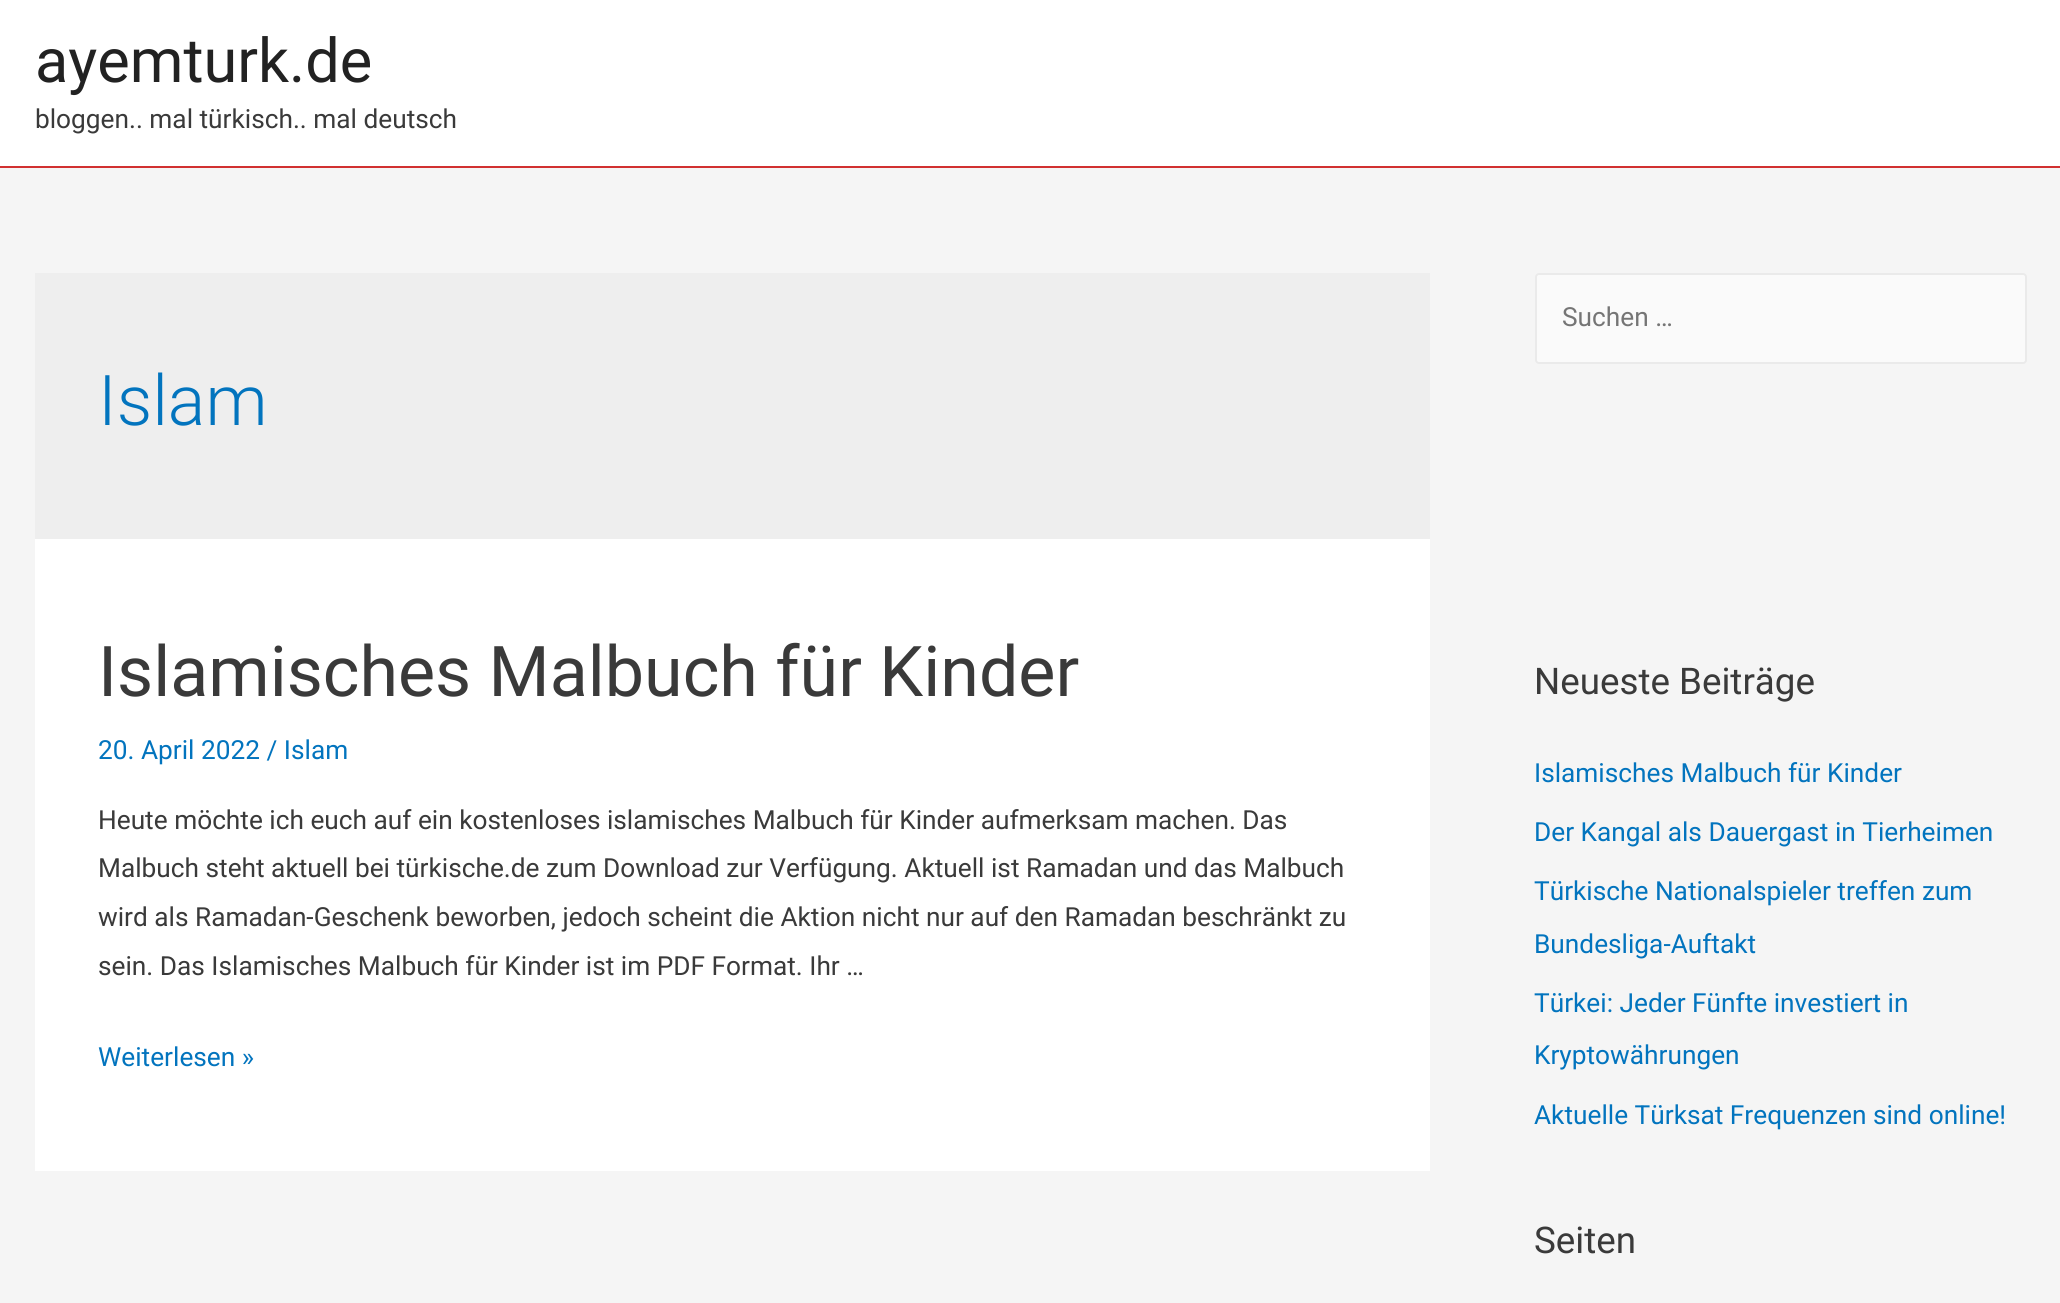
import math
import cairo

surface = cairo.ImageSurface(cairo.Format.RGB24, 2060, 1303)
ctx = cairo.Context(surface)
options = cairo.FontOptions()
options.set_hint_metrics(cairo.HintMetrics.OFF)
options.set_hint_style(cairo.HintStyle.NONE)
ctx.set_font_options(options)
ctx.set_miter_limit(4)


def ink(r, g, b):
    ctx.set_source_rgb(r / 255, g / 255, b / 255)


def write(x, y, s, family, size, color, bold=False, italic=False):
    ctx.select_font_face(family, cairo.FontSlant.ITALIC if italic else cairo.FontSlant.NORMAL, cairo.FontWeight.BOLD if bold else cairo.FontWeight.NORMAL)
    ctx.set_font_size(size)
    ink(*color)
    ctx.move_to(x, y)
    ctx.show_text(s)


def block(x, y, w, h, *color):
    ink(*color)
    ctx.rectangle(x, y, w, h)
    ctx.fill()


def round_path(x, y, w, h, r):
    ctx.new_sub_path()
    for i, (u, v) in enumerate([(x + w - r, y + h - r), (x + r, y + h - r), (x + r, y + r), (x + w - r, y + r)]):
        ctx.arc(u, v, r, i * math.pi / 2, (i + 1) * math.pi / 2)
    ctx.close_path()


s1 = dict(family="Roboto", size=61.25, color=(34, 34, 34))
s2 = dict(family="Roboto", size=26.25, color=(58, 58, 58))
s3 = dict(family="Roboto Light", size=70, color=(2, 116, 190))
s4 = dict(family="Roboto", size=70, color=(58, 58, 58))
s5 = dict(family="Roboto", size=26.25, color=(2, 116, 190))
s6 = dict(family="Roboto", size=26.25, color=(117, 117, 117))
s7 = dict(family="Roboto", size=36.75, color=(58, 58, 58))

ink(245, 245, 245)
ctx.paint()
block(0, 0, 2060, 166, 255, 255, 255)
block(0, 166, 2060, 2, 209, 48, 48)
write(35, 82, "ayemturk.de", **s1)
write(35, 128, "bloggen.. mal türkisch.. mal deutsch", **s2)
block(35, 273, 1395, 266, 238, 238, 238)
write(98, 425, "Islam", **s3)
block(35, 539, 1395, 632, 255, 255, 255)
write(98, 696, "Islamisches Malbuch für Kinder", **s4)
write(98, 759, "20. April 2022 / Islam", **s5)
write(98, 829, "Heute möchte ich euch auf ein kostenloses islamisches Malbuch für Kinder aufmerksam machen. Das", **s2)
write(98, 877, "Malbuch steht aktuell bei türkische.de zum Download zur Verfügung. Aktuell ist Ramadan und das Malbuch", **s2)
write(98, 926, "wird als Ramadan-Geschenk beworben, jedoch scheint die Aktion nicht nur auf den Ramadan beschränkt zu", **s2)
write(98, 975, "sein. Das Islamisches Malbuch für Kinder ist im PDF Format. Ihr …", **s2)
write(98, 1066, "Weiterlesen »", **s5)
ink(250, 250, 250)
round_path(1536, 274, 490, 89, 3)
ctx.fill_preserve()
ink(234, 234, 234)
ctx.stroke()
write(1562, 326, "Suchen …", **s6)
write(1534, 694, "Neueste Beiträge", **s7)
write(1534, 782, "Islamisches Malbuch für Kinder", **s5)
write(1534, 841, "Der Kangal als Dauergast in Tierheimen", **s5)
write(1534, 900, "Türkische Nationalspieler treffen zum", **s5)
write(1534, 953, "Bundesliga-Auftakt", **s5)
write(1534, 1012, "Türkei: Jeder Fünfte investiert in", **s5)
write(1534, 1064, "Kryptowährungen", **s5)
write(1534, 1124, "Aktuelle Türksat Frequenzen sind online!", **s5)
write(1534, 1253, "Seiten", **s7)
surface.write_to_png("screenshot.png")
